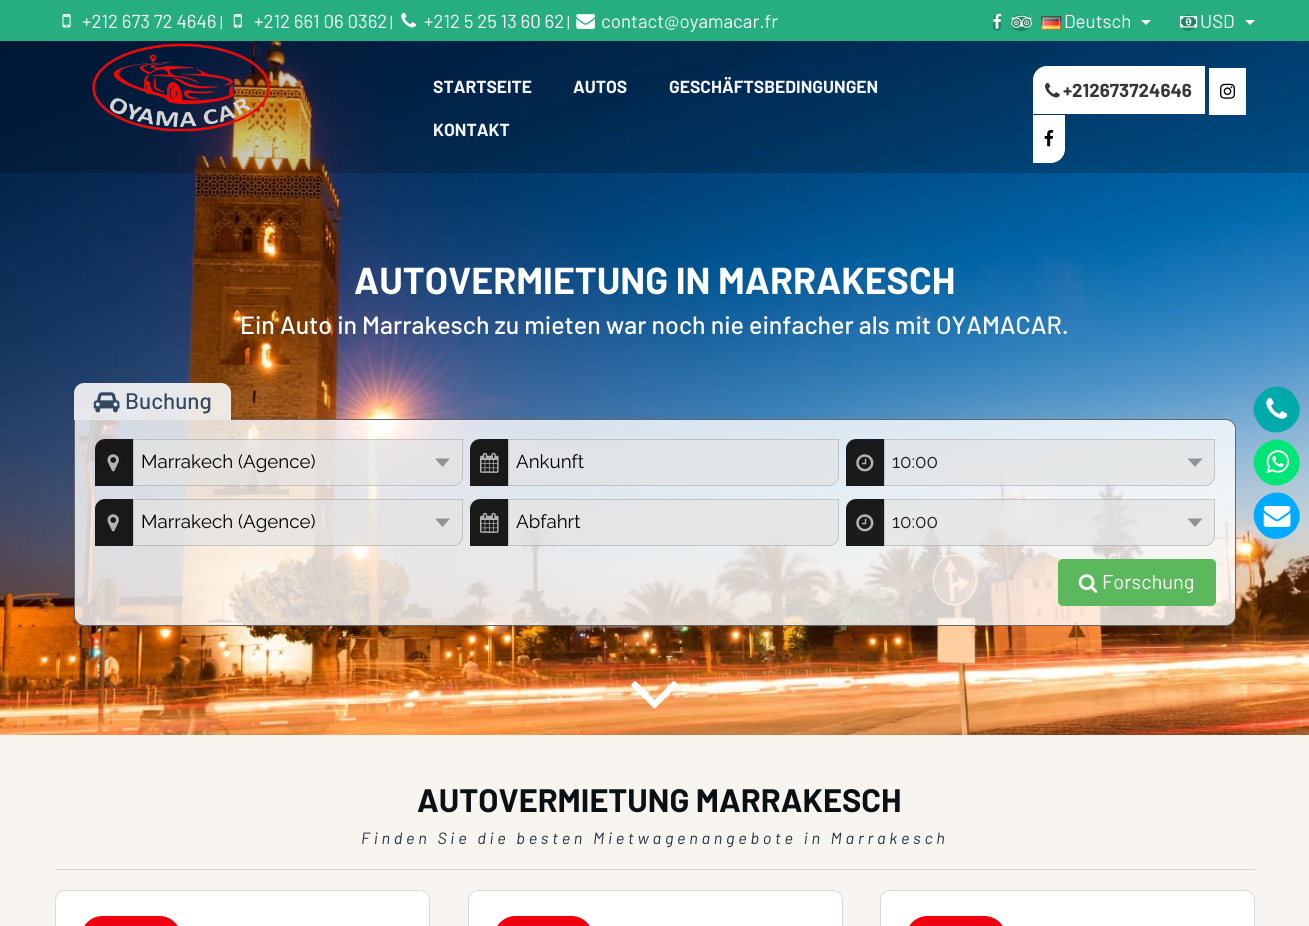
import math
import cairo

surface = cairo.ImageSurface(cairo.Format.RGB24, 1309, 926)
ctx = cairo.Context(surface)
options = cairo.FontOptions()
options.set_hint_metrics(cairo.HintMetrics.OFF)
options.set_hint_style(cairo.HintStyle.NONE)
ctx.set_font_options(options)
ctx.set_miter_limit(4)


def ink(r, g, b):
    ctx.set_source_rgb(r / 255, g / 255, b / 255)


def write(x, y, s, family, size, color, bold=False, italic=False):
    ctx.select_font_face(family, cairo.FontSlant.ITALIC if italic else cairo.FontSlant.NORMAL, cairo.FontWeight.BOLD if bold else cairo.FontWeight.NORMAL)
    ctx.set_font_size(size)
    ink(*color)
    ctx.move_to(x, y)
    ctx.show_text(s)


def write_spaced(x, y, s, letter, word):
    ctx.move_to(x, y)
    for ch in s:
        ctx.show_text(ch)
        ctx.rel_move_to(letter + word * (ch == ' '), 0)


def block(x, y, w, h, *color):
    ink(*color)
    ctx.rectangle(x, y, w, h)
    ctx.fill()


def round_path(x, y, w, h, r):
    ctx.new_sub_path()
    for i, (u, v) in enumerate([(x + w - r, y + h - r), (x + r, y + h - r), (x + r, y + r), (x + w - r, y + r)]):
        ctx.arc(u, v, r, i * math.pi / 2, (i + 1) * math.pi / 2)
    ctx.close_path()


def paste(path, x, y, w, h):
    ctx.save()
    ctx.set_source_surface(cairo.ImageSurface.create_from_png(path), x, y)
    ctx.rectangle(x, y, w, h)
    ctx.fill()
    ctx.restore()


s1 = dict(family="Barlow", size=18.75, color=(255, 255, 255))
s2 = dict(family="Barlow", size=16, color=(255, 255, 255))
s3 = dict(family="Barlow", size=17.5, color=(244, 244, 244), bold=True)
s4 = dict(family="Barlow", size=18.75, color=(55, 55, 55), bold=True)
s5 = dict(family="Barlow", size=37.5, color=(255, 255, 255), bold=True)
s6 = dict(family="Barlow Medium", size=25, color=(255, 255, 255))
s7 = dict(family="Barlow Medium", size=22.5, color=(52, 73, 94))
s8 = dict(family="Raleway", size=18.75, color=(0, 0, 0))
s9 = dict(family="Raleway", size=18.75, color=(28, 28, 28))
s10 = dict(family="Barlow", size=20, color=(255, 255, 255))
s11 = dict(family="Barlow", size=32.5, color=(11, 16, 20), bold=True)

ink(255, 255, 255)
ctx.paint()
paste("pic1.png", 0, 41, 1309, 694)
block(0, 0, 1309, 41, 38, 174, 129)
paste("pic2.png", 62, 14, 9, 14)
write(82, 28, "+212 673 72 4646", **s1)
write(220, 28, "|", **s2)
paste("pic3.png", 233, 14, 9, 14)
write(254, 28, "+212 661 06 0362", **s1)
write(390, 28, "|", **s2)
paste("pic4.png", 401, 12, 15, 16)
write(424, 28, "+212 5 25 13 60 62", **s1)
write(567, 28, "|", **s2)
paste("pic5.png", 576, 14, 19, 15)
write(601, 28, "contact@oyamacar.fr", **s1)
ink(29, 134, 100)
round_path(993, 15, 8, 16, 4)
ctx.fill()
paste("pic6.png", 993, 13, 9, 16)
round_path(1011, 15, 20, 16, 8)
ctx.fill()
paste("pic7.png", 1011, 15, 21, 13)
paste("pic8.png", 1041, 16, 21, 14)
write(1064, 28, "Deutsch", **s1)
ctx.new_path()
ctx.move_to(1141, 20)
ctx.line_to(1151, 20)
ctx.line_to(1146, 25)
ctx.close_path()
ctx.fill()
ink(29, 134, 100)
ctx.arc(1188, 23, 8, 0, 2 * math.pi)
ctx.fill()
paste("pic9.png", 1180, 16, 18, 12)
write(1200, 28, "USD", **s1)
ctx.new_path()
ctx.move_to(1245, 20)
ctx.line_to(1255, 20)
ctx.line_to(1250, 25)
ctx.close_path()
ctx.fill()
ctx.set_source_rgba(0, 0, 0, 0.21)
ctx.rectangle(0, 41, 1309, 132)
ctx.fill()
paste("pic10.png", 92, 43, 178, 89)
write(433, 93, "STARTSEITE", **s3)
write(573, 93, "AUTOS", **s3)
write(669, 93, "GESCHÄFTSBEDINGUNGEN", **s3)
write(433, 136, "KONTAKT", **s3)
ink(255, 255, 255)
ctx.new_path()
ctx.move_to(1047, 66.5)
ctx.line_to(1204.5, 66.5)
ctx.line_to(1204.5, 113.5)
ctx.line_to(1033.5, 113.5)
ctx.line_to(1033.5, 80)
ctx.curve_to(1033.5, 72.5, 1039.5, 66.5, 1047, 66.5)
ctx.close_path()
ctx.fill_preserve()
ctx.set_line_width(1)
ctx.stroke()
paste("pic11.png", 1045, 82, 15, 16)
write(1063, 97, "+212673724646", **s4)
block(1209, 68, 37, 47, 255, 255, 255)
paste("pic12.png", 1220, 83, 15, 16)
ctx.new_path()
ctx.move_to(1033, 115)
ctx.line_to(1065, 115)
ctx.line_to(1065, 149)
ctx.curve_to(1065, 156.5, 1058.5, 163, 1051, 163)
ctx.line_to(1033, 163)
ctx.close_path()
ctx.fill()
paste("pic13.png", 1044, 130, 10, 17)
write(354, 294, "AUTOVERMIETUNG IN MARRAKESCH", **s5)
write(240, 334, "Ein Auto in Marrakesch zu mieten war noch nie einfacher als mit OYAMACAR.", **s6)
ctx.set_source_rgba(1, 1, 1, 0.8)
ctx.new_path()
ctx.move_to(74.5, 419.5)
ctx.line_to(1226, 419.5)
ctx.curve_to(1231, 419.5, 1235.5, 424, 1235.5, 429)
ctx.line_to(1235.5, 616)
ctx.curve_to(1235.5, 621, 1231, 625.5, 1226, 625.5)
ctx.line_to(84, 625.5)
ctx.curve_to(79, 625.5, 74.5, 621, 74.5, 616)
ctx.close_path()
ctx.fill_preserve()
ink(102, 102, 102)
ctx.stroke()
ctx.set_source_rgba(0.98, 0.98, 0.98, 0.9)
ctx.new_path()
ctx.move_to(84, 383)
ctx.line_to(221, 383)
ctx.curve_to(226.5, 383, 231, 387.5, 231, 393)
ctx.line_to(231, 420)
ctx.line_to(74, 420)
ctx.line_to(74, 393)
ctx.curve_to(74, 387.5, 78.5, 383, 84, 383)
ctx.close_path()
ctx.fill()
paste("pic14.png", 93, 392, 27, 21)
write(125, 409, "Buchung", **s7)
ctx.set_source_rgba(0.016, 0.016, 0.016, 0.9)
ctx.new_path()
ctx.move_to(105, 439)
ctx.line_to(133, 439)
ctx.line_to(133, 486)
ctx.line_to(95, 486)
ctx.line_to(95, 449)
ctx.curve_to(95, 443.5, 99.5, 439, 105, 439)
ctx.close_path()
ctx.fill()
paste("pic15.png", 107, 454, 12, 18)
ctx.set_source_rgba(0.89, 0.89, 0.89, 0.7)
ctx.new_path()
ctx.move_to(133, 439)
ctx.line_to(463, 439)
ctx.line_to(463, 476)
ctx.curve_to(463, 481.5, 458.5, 486, 453, 486)
ctx.line_to(133, 486)
ctx.close_path()
ctx.fill()
ctx.new_path()
ctx.move_to(133.5, 439.5)
ctx.line_to(462.5, 439.5)
ctx.line_to(462.5, 476)
ctx.curve_to(462.5, 481, 458, 485.5, 453, 485.5)
ctx.line_to(133.5, 485.5)
ctx.close_path()
ctx.set_source_rgba(0, 0, 0, 0.15)
ctx.stroke()
write(141, 468, "Marrakech (Agence)", **s8)
ink(145, 145, 145)
ctx.new_path()
ctx.move_to(435, 458.5)
ctx.line_to(450, 458.5)
ctx.line_to(442.5, 467)
ctx.close_path()
ctx.fill()
ctx.set_source_rgba(0.016, 0.016, 0.016, 0.9)
ctx.new_path()
ctx.move_to(480, 439)
ctx.line_to(508, 439)
ctx.line_to(508, 486)
ctx.line_to(470, 486)
ctx.line_to(470, 449)
ctx.curve_to(470, 443.5, 474.5, 439, 480, 439)
ctx.close_path()
ctx.fill()
paste("pic16.png", 480, 452, 19, 21)
ctx.set_source_rgba(0.89, 0.89, 0.89, 0.7)
ctx.new_path()
ctx.move_to(508, 439)
ctx.line_to(839, 439)
ctx.line_to(839, 476)
ctx.curve_to(839, 481.5, 834.5, 486, 829, 486)
ctx.line_to(508, 486)
ctx.close_path()
ctx.fill()
ctx.new_path()
ctx.move_to(508.5, 439.5)
ctx.line_to(838.5, 439.5)
ctx.line_to(838.5, 476)
ctx.curve_to(838.5, 481, 834, 485.5, 829, 485.5)
ctx.line_to(508.5, 485.5)
ctx.close_path()
ctx.set_source_rgba(0, 0, 0, 0.15)
ctx.stroke()
write(516, 468, "Ankunft", **s8)
ctx.set_source_rgba(0.016, 0.016, 0.016, 0.9)
ctx.new_path()
ctx.move_to(856, 439)
ctx.line_to(884, 439)
ctx.line_to(884, 486)
ctx.line_to(846, 486)
ctx.line_to(846, 449)
ctx.curve_to(846, 443.5, 850.5, 439, 856, 439)
ctx.close_path()
ctx.fill()
paste("pic17.png", 856, 454, 18, 18)
ctx.set_source_rgba(0.89, 0.89, 0.89, 0.7)
ctx.new_path()
ctx.move_to(884, 439)
ctx.line_to(1215, 439)
ctx.line_to(1215, 476)
ctx.curve_to(1215, 481.5, 1210.5, 486, 1205, 486)
ctx.line_to(884, 486)
ctx.close_path()
ctx.fill()
ctx.new_path()
ctx.move_to(884.5, 439.5)
ctx.line_to(1214.5, 439.5)
ctx.line_to(1214.5, 476)
ctx.curve_to(1214.5, 481, 1210, 485.5, 1205, 485.5)
ctx.line_to(884.5, 485.5)
ctx.close_path()
ctx.set_source_rgba(0, 0, 0, 0.15)
ctx.stroke()
write(892, 468, "10:00", **s9)
ink(145, 145, 145)
ctx.new_path()
ctx.move_to(1187.5, 458.5)
ctx.line_to(1202.5, 458.5)
ctx.line_to(1195, 467)
ctx.close_path()
ctx.fill()
ctx.set_source_rgba(0.016, 0.016, 0.016, 0.9)
ctx.new_path()
ctx.move_to(105, 499)
ctx.line_to(133, 499)
ctx.line_to(133, 546)
ctx.line_to(95, 546)
ctx.line_to(95, 509)
ctx.curve_to(95, 503.5, 99.5, 499, 105, 499)
ctx.close_path()
ctx.fill()
paste("pic18.png", 107, 514, 12, 18)
ctx.set_source_rgba(0.89, 0.89, 0.89, 0.7)
ctx.new_path()
ctx.move_to(133, 499)
ctx.line_to(463, 499)
ctx.line_to(463, 536)
ctx.curve_to(463, 541.5, 458.5, 546, 453, 546)
ctx.line_to(133, 546)
ctx.close_path()
ctx.fill()
ctx.new_path()
ctx.move_to(133.5, 499.5)
ctx.line_to(462.5, 499.5)
ctx.line_to(462.5, 536)
ctx.curve_to(462.5, 541, 458, 545.5, 453, 545.5)
ctx.line_to(133.5, 545.5)
ctx.close_path()
ctx.set_source_rgba(0, 0, 0, 0.15)
ctx.stroke()
write(141, 528, "Marrakech (Agence)", **s8)
ink(145, 145, 145)
ctx.new_path()
ctx.move_to(435, 518.5)
ctx.line_to(450, 518.5)
ctx.line_to(442.5, 527)
ctx.close_path()
ctx.fill()
ctx.set_source_rgba(0.016, 0.016, 0.016, 0.9)
ctx.new_path()
ctx.move_to(480, 499)
ctx.line_to(508, 499)
ctx.line_to(508, 546)
ctx.line_to(470, 546)
ctx.line_to(470, 509)
ctx.curve_to(470, 503.5, 474.5, 499, 480, 499)
ctx.close_path()
ctx.fill()
paste("pic19.png", 480, 512, 19, 21)
ctx.set_source_rgba(0.89, 0.89, 0.89, 0.7)
ctx.new_path()
ctx.move_to(508, 499)
ctx.line_to(839, 499)
ctx.line_to(839, 536)
ctx.curve_to(839, 541.5, 834.5, 546, 829, 546)
ctx.line_to(508, 546)
ctx.close_path()
ctx.fill()
ctx.new_path()
ctx.move_to(508.5, 499.5)
ctx.line_to(838.5, 499.5)
ctx.line_to(838.5, 536)
ctx.curve_to(838.5, 541, 834, 545.5, 829, 545.5)
ctx.line_to(508.5, 545.5)
ctx.close_path()
ctx.set_source_rgba(0, 0, 0, 0.15)
ctx.stroke()
write(516, 528, "Abfahrt", **s8)
ctx.set_source_rgba(0.016, 0.016, 0.016, 0.9)
ctx.new_path()
ctx.move_to(856, 499)
ctx.line_to(884, 499)
ctx.line_to(884, 546)
ctx.line_to(846, 546)
ctx.line_to(846, 509)
ctx.curve_to(846, 503.5, 850.5, 499, 856, 499)
ctx.close_path()
ctx.fill()
paste("pic20.png", 856, 514, 18, 18)
ctx.set_source_rgba(0.89, 0.89, 0.89, 0.7)
ctx.new_path()
ctx.move_to(884, 499)
ctx.line_to(1215, 499)
ctx.line_to(1215, 536)
ctx.curve_to(1215, 541.5, 1210.5, 546, 1205, 546)
ctx.line_to(884, 546)
ctx.close_path()
ctx.fill()
ctx.new_path()
ctx.move_to(884.5, 499.5)
ctx.line_to(1214.5, 499.5)
ctx.line_to(1214.5, 536)
ctx.curve_to(1214.5, 541, 1210, 545.5, 1205, 545.5)
ctx.line_to(884.5, 545.5)
ctx.close_path()
ctx.set_source_rgba(0, 0, 0, 0.15)
ctx.stroke()
write(892, 528, "10:00", **s9)
ink(145, 145, 145)
ctx.new_path()
ctx.move_to(1187.5, 518.5)
ctx.line_to(1202.5, 518.5)
ctx.line_to(1195, 527)
ctx.close_path()
ctx.fill()
ink(92, 184, 92)
round_path(1058.5, 559.5, 157, 46, 4.5)
ctx.fill_preserve()
ctx.stroke()
paste("pic21.png", 1078, 574, 20, 19)
write(1102, 589, "Forschung", **s10)
paste("pic22.png", 631, 681, 47, 28)
block(0, 735, 1309, 191, 248, 245, 240)
write(417, 812, "AUTOVERMIETUNG MARRAKESCH", **s11)
block(55, 869, 1200, 1, 214, 214, 214)
ctx.select_font_face("Barlow", cairo.FontSlant.ITALIC)
ctx.set_font_size(16.25)
ink(34, 49, 61)
write_spaced(361, 844, "Finden Sie die besten Mietwagenangebote in Marrakesch", 3.75, 0)
ink(255, 255, 255)
round_path(55.5, 890.5, 374, 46, 9.5)
ctx.fill_preserve()
ink(217, 217, 217)
ctx.stroke()
ink(240, 0, 14)
round_path(81, 916, 100, 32, 21.5)
ctx.fill()
ink(255, 255, 255)
round_path(468.5, 890.5, 374, 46, 9.5)
ctx.fill_preserve()
ink(217, 217, 217)
ctx.stroke()
ink(240, 0, 14)
round_path(494, 916, 99, 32, 21.5)
ctx.fill()
ink(255, 255, 255)
round_path(880.5, 890.5, 374, 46, 9.5)
ctx.fill_preserve()
ink(217, 217, 217)
ctx.stroke()
ink(240, 0, 14)
round_path(906, 916, 100, 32, 21.5)
ctx.fill()
ink(0, 170, 170)
ctx.new_path()
ctx.move_to(1296, 398)
ctx.curve_to(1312, 424, 1272, 447, 1257, 421)
ctx.curve_to(1242, 395, 1281, 372, 1296, 398)
ctx.close_path()
ctx.fill()
paste("pic23.png", 1266, 397, 22, 22)
ink(0, 230, 118)
ctx.new_path()
ctx.move_to(1296, 451)
ctx.curve_to(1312, 477, 1272, 500, 1257, 474)
ctx.curve_to(1242, 448, 1281, 425, 1296, 451)
ctx.close_path()
ctx.fill()
paste("pic24.png", 1266, 450, 24, 24)
ink(0, 170, 255)
ctx.new_path()
ctx.move_to(1296, 504)
ctx.curve_to(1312, 530, 1272, 554, 1257, 527)
ctx.curve_to(1242, 501, 1281, 478, 1296, 504)
ctx.close_path()
ctx.fill()
paste("pic25.png", 1263, 506, 28, 21)
surface.write_to_png("screenshot.png")
